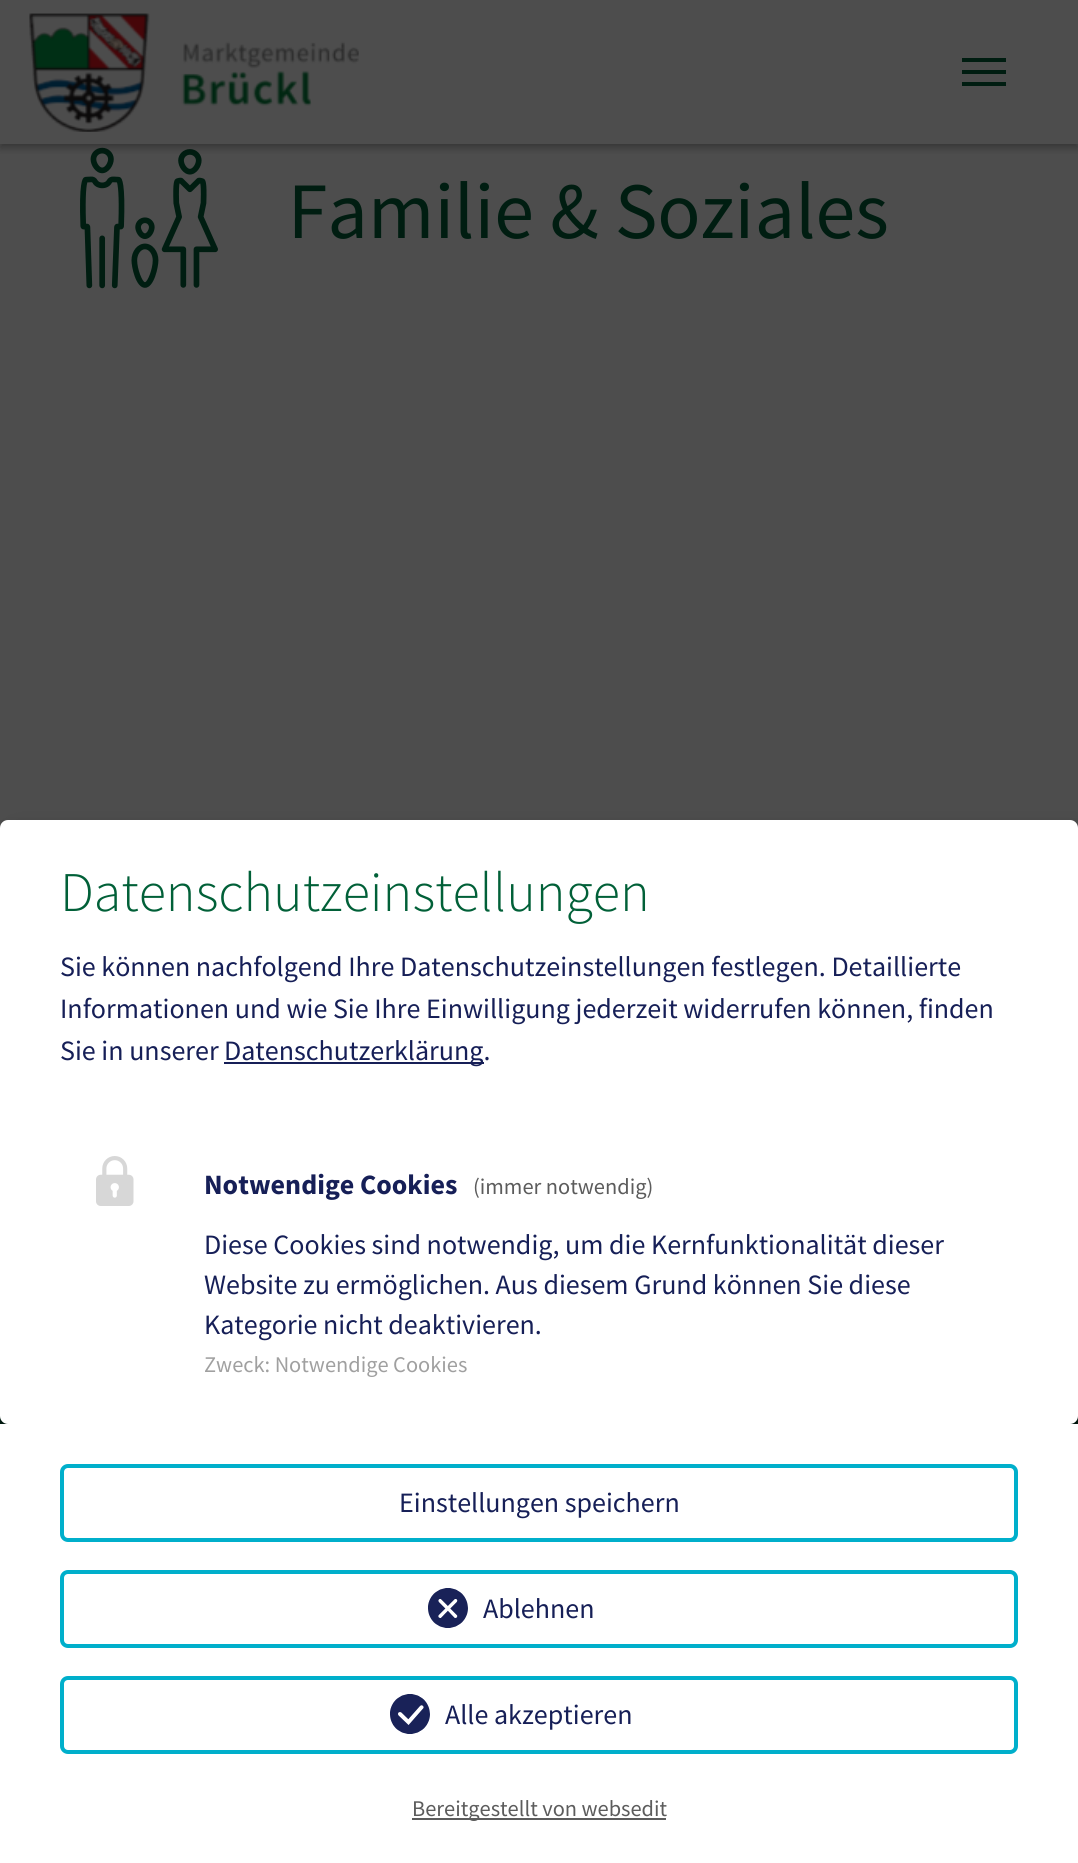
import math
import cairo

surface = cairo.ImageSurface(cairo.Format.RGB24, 1078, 1863)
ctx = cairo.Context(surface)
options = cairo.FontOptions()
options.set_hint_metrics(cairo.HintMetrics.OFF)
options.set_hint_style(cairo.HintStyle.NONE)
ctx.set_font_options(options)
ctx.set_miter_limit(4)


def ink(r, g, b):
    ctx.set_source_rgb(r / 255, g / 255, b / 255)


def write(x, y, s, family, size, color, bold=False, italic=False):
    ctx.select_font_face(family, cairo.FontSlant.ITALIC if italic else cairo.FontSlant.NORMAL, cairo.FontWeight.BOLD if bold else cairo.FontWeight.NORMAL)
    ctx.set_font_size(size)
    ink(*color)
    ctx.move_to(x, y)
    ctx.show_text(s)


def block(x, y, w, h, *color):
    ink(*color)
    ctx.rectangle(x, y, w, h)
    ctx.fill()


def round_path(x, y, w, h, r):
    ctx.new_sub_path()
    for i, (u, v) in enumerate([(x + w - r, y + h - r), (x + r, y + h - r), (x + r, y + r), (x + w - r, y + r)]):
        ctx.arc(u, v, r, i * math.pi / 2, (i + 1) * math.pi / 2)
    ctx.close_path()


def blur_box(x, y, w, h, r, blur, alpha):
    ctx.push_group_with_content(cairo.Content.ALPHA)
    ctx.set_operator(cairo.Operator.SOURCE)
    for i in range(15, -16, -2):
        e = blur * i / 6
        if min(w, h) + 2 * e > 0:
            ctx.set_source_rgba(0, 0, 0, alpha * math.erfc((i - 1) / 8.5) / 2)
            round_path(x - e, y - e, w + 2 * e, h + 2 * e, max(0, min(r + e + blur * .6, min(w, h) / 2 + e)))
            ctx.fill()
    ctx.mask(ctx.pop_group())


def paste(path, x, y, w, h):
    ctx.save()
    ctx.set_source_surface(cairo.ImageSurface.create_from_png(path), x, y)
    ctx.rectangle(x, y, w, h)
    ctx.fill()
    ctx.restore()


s1 = dict(family="Source Sans Pro", size=80, color=(0, 29, 17))
s2 = dict(family="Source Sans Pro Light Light", size=56, color=(1, 96, 56))
s3 = dict(family="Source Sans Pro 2", size=28, color=(22, 31, 87))
s4 = dict(family="Source Sans Pro", size=28, color=(22, 31, 87), bold=True)
s5 = dict(family="Source Sans Pro 2", size=22.4, color=(92, 92, 92))
s6 = dict(family="Source Sans Pro 2", size=22.4, color=(160, 160, 160))

ink(77, 77, 77)
ctx.paint()
paste("pic2.png", 80, 147, 138, 142)
ctx.save()
ctx.rectangle(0, 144, 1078, 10)
ctx.clip()
ink(0, 0, 0)
blur_box(0, 4, 1078, 144, 0, 4, 0.3)
ctx.restore()
paste("pic1.png", 29, 13, 330, 119)
block(962, 70, 44, 4, 0, 29, 17)
block(962, 58, 44, 4, 0, 29, 17)
block(962, 82, 44, 4, 0, 29, 17)
write(288, 238, "Familie & Soziales", **s1)
block(0, 1416, 1078, 8, 0, 29, 17)
ink(0, 0, 0)
blur_box(10, 830, 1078, 604, 8, 10, 0.19)
blur_box(0, 828, 1078, 604, 8, 6, 0.2)
ink(255, 255, 255)
round_path(0, 820, 1078, 604, 8)
ctx.fill()
write(60, 911, "Datenschutzeinstellungen", **s2)
write(60, 976, "Sie können nachfolgend Ihre Datenschutzeinstellungen festlegen. Detaillierte", **s3)
write(60, 1018, "Informationen und wie Sie Ihre Einwilligung jederzeit widerrufen können, finden", **s3)
write(60, 1060, "Sie in unserer", **s3)
block(224, 1062, 260, 2, 22, 31, 87)
write(224, 1060, "Datenschutzerklärung.", **s3)
paste("pic3.png", 96, 1156, 38, 50)
write(204, 1194, "Notwendige Cookies", **s4)
write(473, 1194, "(immer notwendig)", **s5)
write(204, 1254, "Diese Cookies sind notwendig, um die Kernfunktionalität dieser", **s3)
write(204, 1294, "Website zu ermöglichen. Aus diesem Grund können Sie diese", **s3)
write(204, 1334, "Kategorie nicht deaktivieren.", **s3)
write(204, 1372, "Zweck: Notwendige Cookies", **s6)
block(0, 1424, 1078, 439, 255, 255, 255)
round_path(62, 1466, 954, 74, 6)
ink(0, 175, 203)
ctx.set_line_width(4)
ctx.stroke()
write(399, 1512, "Einstellungen speichern", **s3)
round_path(62, 1572, 954, 74, 6)
ink(0, 175, 203)
ctx.stroke()
paste("pic4.png", 428, 1588, 40, 40)
write(483, 1618, "Ablehnen", **s3)
round_path(62, 1678, 954, 74, 6)
ink(0, 175, 203)
ctx.stroke()
paste("pic5.png", 390, 1694, 40, 40)
write(445, 1724, "Alle akzeptieren", **s3)
block(412, 1818, 254, 2, 92, 92, 92)
write(412, 1816, "Bereitgestellt von websedit", **s5)
surface.write_to_png("screenshot.png")
